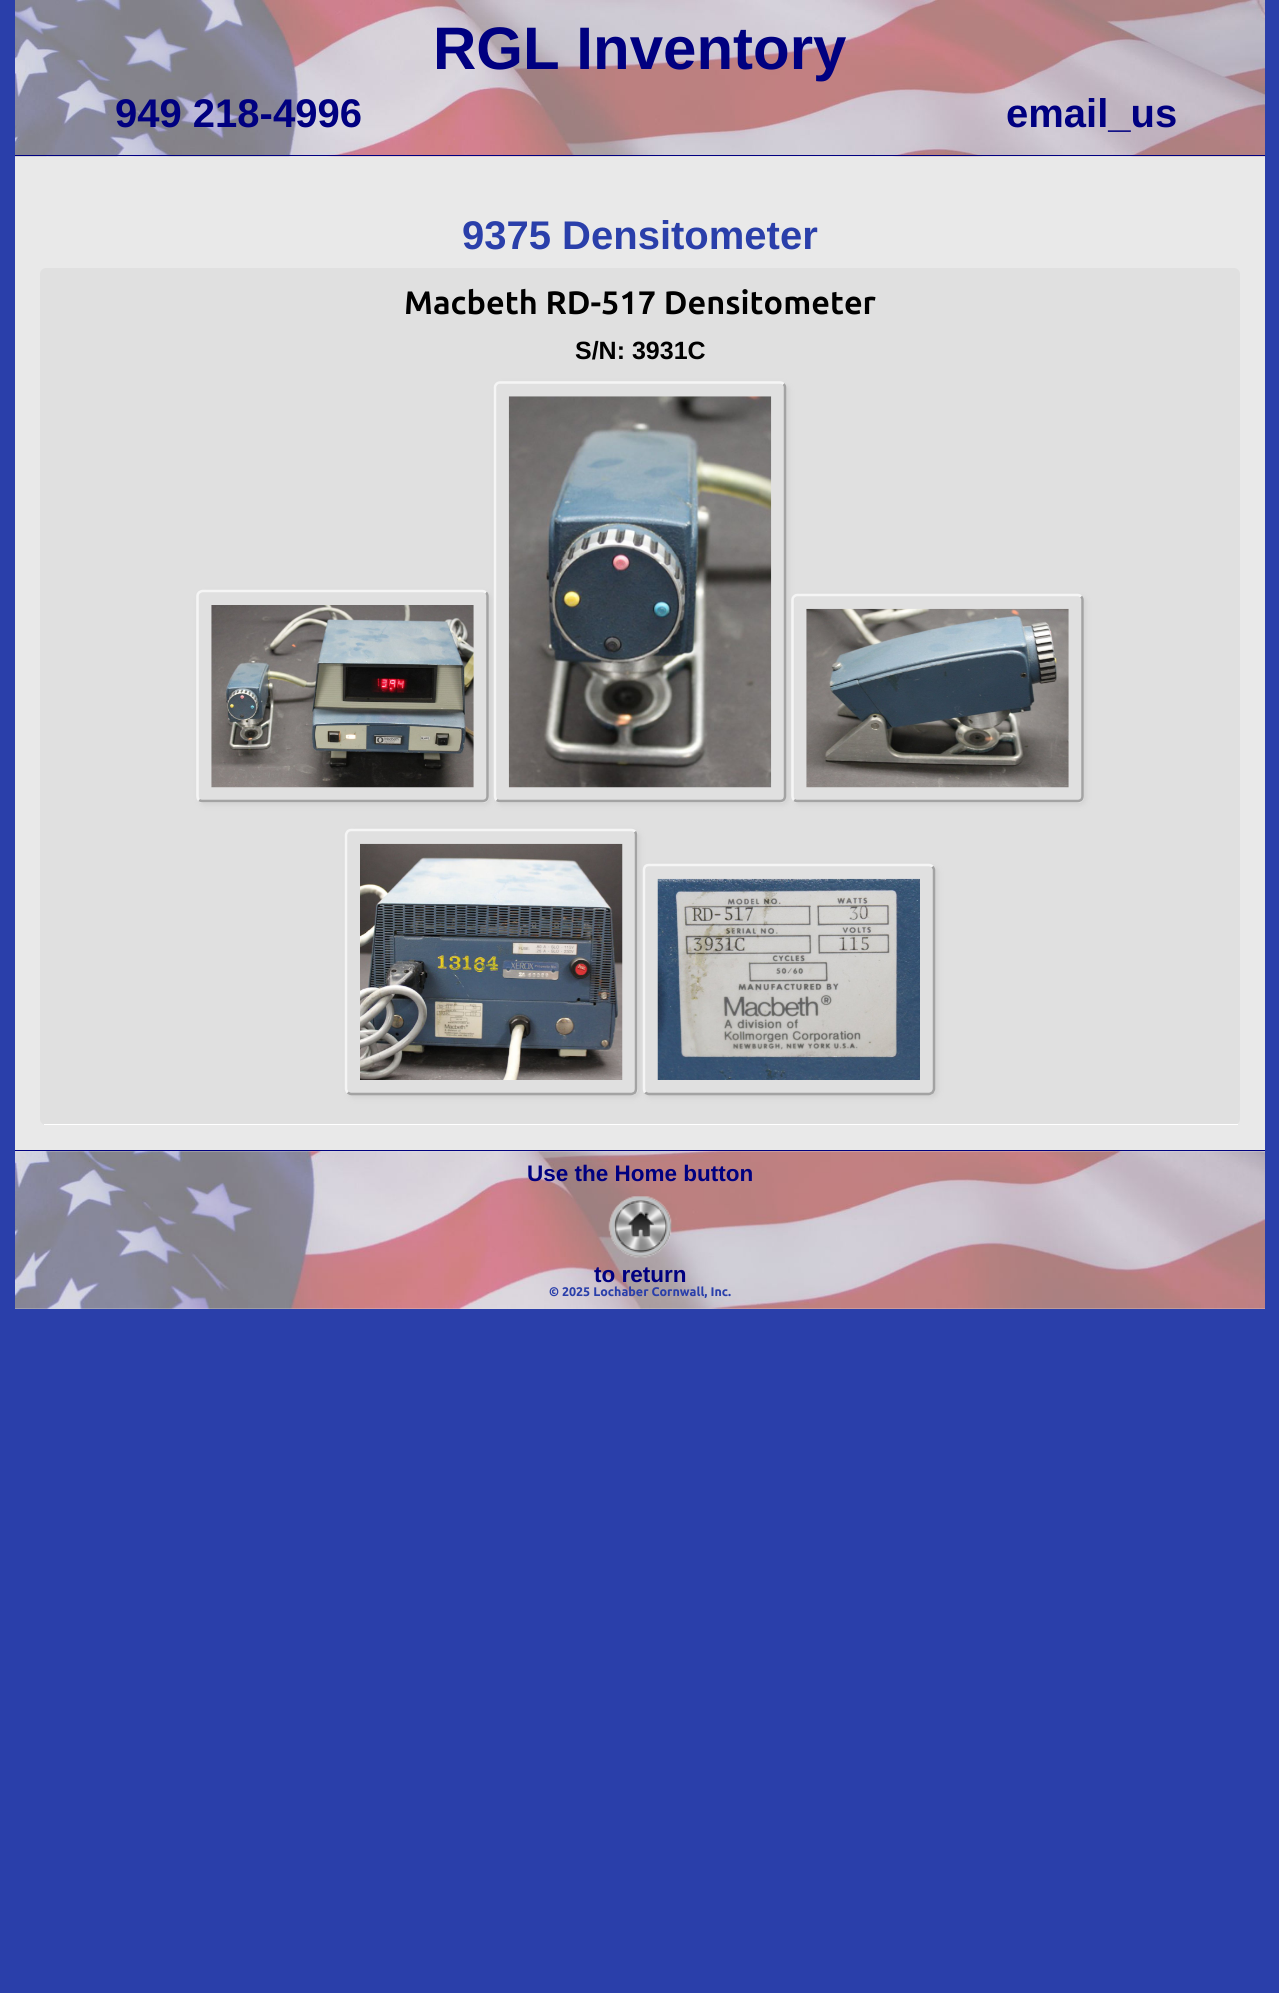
import math
import cairo

surface = cairo.ImageSurface(cairo.Format.RGB24, 1279, 1993)
ctx = cairo.Context(surface)
options = cairo.FontOptions()
options.set_hint_metrics(cairo.HintMetrics.OFF)
options.set_hint_style(cairo.HintStyle.NONE)
ctx.set_font_options(options)
ctx.set_miter_limit(4)


def ink(r, g, b):
    ctx.set_source_rgb(r / 255, g / 255, b / 255)


def write(x, y, s, family, size, color, bold=False, italic=False):
    ctx.select_font_face(family, cairo.FontSlant.ITALIC if italic else cairo.FontSlant.NORMAL, cairo.FontWeight.BOLD if bold else cairo.FontWeight.NORMAL)
    ctx.set_font_size(size)
    ink(*color)
    ctx.move_to(x, y)
    ctx.show_text(s)


def block(x, y, w, h, *color):
    ink(*color)
    ctx.rectangle(x, y, w, h)
    ctx.fill()


def round_path(x, y, w, h, r):
    ctx.new_sub_path()
    for i, (u, v) in enumerate([(x + w - r, y + h - r), (x + r, y + h - r), (x + r, y + r), (x + w - r, y + r)]):
        ctx.arc(u, v, r, i * math.pi / 2, (i + 1) * math.pi / 2)
    ctx.close_path()


def blur_box(x, y, w, h, r, blur, alpha):
    ctx.push_group_with_content(cairo.Content.ALPHA)
    ctx.set_operator(cairo.Operator.SOURCE)
    for i in range(15, -16, -2):
        e = blur * i / 6
        if min(w, h) + 2 * e > 0:
            ctx.set_source_rgba(0, 0, 0, alpha * math.erfc((i - 1) / 8.5) / 2)
            round_path(x - e, y - e, w + 2 * e, h + 2 * e, max(0, min(r + e + blur * .6, min(w, h) / 2 + e)))
            ctx.fill()
    ctx.mask(ctx.pop_group())


def paste(path, x, y, w, h):
    ctx.save()
    ctx.set_source_surface(cairo.ImageSurface.create_from_png(path), x, y)
    ctx.rectangle(x, y, w, h)
    ctx.fill()
    ctx.restore()


s1 = dict(family="Liberation Sans", size=60, color=(0, 0, 128), bold=True)
s2 = dict(family="Liberation Sans", size=40, color=(0, 0, 128), bold=True)
s3 = dict(family="Liberation Sans", size=40, color=(42, 63, 170), bold=True)
s4 = dict(family="Ubuntu", size=32.5, color=(0, 0, 0), bold=True)
s5 = dict(family="Liberation Sans", size=25, color=(0, 0, 0), bold=True)
s6 = dict(family="Liberation Sans", size=22.5, color=(0, 0, 128), bold=True)
s7 = dict(family="Ubuntu ExtraBold", size=12.5, color=(42, 63, 170))

ink(42, 63, 170)
ctx.paint()
block(15, 156, 1250, 1153, 233, 233, 233)
paste("pic1.png", 15, 0, 1250, 157)
block(15, 155, 1250, 1, 0, 0, 128)
write(433, 69, "RGL Inventory", **s1)
write(115, 127, "949 218-4996", **s2)
write(1006, 127, "email_us", **s2)
write(462, 249, "9375 Densitometer", **s3)
ink(224, 224, 224)
round_path(40, 268, 1200, 857, 6)
ctx.fill()
block(44, 1124, 1194, 1, 255, 255, 255)
write(404, 314, "Macbeth RD-517 Densitometer", **s4)
write(575, 359, "S/N: 3931C", **s5)
ctx.save()
ctx.set_fill_rule(cairo.FillRule.EVEN_ODD)
ctx.new_path()
ctx.move_to(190, 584)
ctx.line_to(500, 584)
ctx.line_to(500, 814)
ctx.line_to(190, 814)
ctx.close_path()
ctx.move_to(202, 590)
ctx.line_to(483, 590)
ctx.curve_to(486.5, 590, 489, 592.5, 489, 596)
ctx.line_to(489, 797)
ctx.curve_to(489, 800.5, 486.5, 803, 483, 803)
ctx.line_to(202, 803)
ctx.curve_to(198.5, 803, 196, 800.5, 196, 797)
ctx.line_to(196, 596)
ctx.curve_to(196, 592.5, 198.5, 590, 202, 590)
ctx.close_path()
ctx.clip()
ink(210, 210, 210)
blur_box(199, 593, 292, 212, 6, 2.5, 1)
ctx.restore()
ctx.new_path()
ctx.move_to(486, 592.5)
ctx.curve_to(487, 593.5, 487.5, 595, 487.5, 596)
ctx.line_to(487.5, 796)
ctx.curve_to(487.5, 797.5, 487, 799, 486, 800)
ctx.curve_to(485, 800.5, 484, 801, 482.5, 801)
ctx.line_to(202.5, 801)
ctx.curve_to(201, 801, 200, 800.5, 199, 800)
ink(163, 163, 163)
ctx.set_line_width(2.5)
ctx.stroke()
ctx.save()
ctx.set_fill_rule(cairo.FillRule.EVEN_ODD)
ctx.new_path()
ctx.move_to(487, 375)
ctx.line_to(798, 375)
ctx.line_to(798, 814)
ctx.line_to(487, 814)
ctx.close_path()
ctx.move_to(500, 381)
ctx.line_to(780, 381)
ctx.curve_to(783.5, 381, 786, 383.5, 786, 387)
ctx.line_to(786, 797)
ctx.curve_to(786, 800.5, 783.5, 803, 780, 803)
ctx.line_to(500, 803)
ctx.curve_to(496.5, 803, 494, 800.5, 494, 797)
ctx.line_to(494, 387)
ctx.curve_to(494, 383.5, 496.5, 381, 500, 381)
ctx.close_path()
ctx.clip()
ink(210, 210, 210)
blur_box(496, 384, 293, 421, 6, 2.5, 1)
ctx.restore()
ctx.new_path()
ctx.move_to(783.5, 384)
ctx.curve_to(784.5, 385, 785, 386, 785, 387.5)
ctx.line_to(785, 796)
ctx.curve_to(785, 797.5, 784.5, 799, 783.5, 800)
ctx.curve_to(782.5, 800.5, 781.5, 801, 780, 801)
ctx.line_to(500, 801)
ctx.curve_to(498.5, 801, 497.5, 800.5, 496.5, 800)
ctx.stroke()
ctx.new_path()
ctx.move_to(496.5, 800)
ctx.curve_to(495.5, 799, 495, 797.5, 495, 796)
ctx.line_to(495, 387.5)
ctx.curve_to(495, 386, 495.5, 385, 496.5, 384)
ctx.curve_to(497.5, 383, 498.5, 382.5, 500, 382.5)
ctx.line_to(780, 382.5)
ctx.curve_to(781.5, 382.5, 782.5, 383, 783.5, 384)
ink(245, 245, 245)
ctx.stroke()
paste("pic2.png", 508, 396, 264, 392)
ctx.save()
ctx.set_fill_rule(cairo.FillRule.EVEN_ODD)
ctx.new_path()
ctx.move_to(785, 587)
ctx.line_to(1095, 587)
ctx.line_to(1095, 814)
ctx.line_to(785, 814)
ctx.close_path()
ctx.move_to(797, 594)
ctx.line_to(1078, 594)
ctx.curve_to(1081.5, 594, 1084, 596.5, 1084, 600)
ctx.line_to(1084, 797)
ctx.curve_to(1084, 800.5, 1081.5, 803, 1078, 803)
ctx.line_to(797, 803)
ctx.curve_to(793.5, 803, 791, 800.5, 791, 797)
ctx.line_to(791, 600)
ctx.curve_to(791, 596.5, 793.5, 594, 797, 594)
ctx.close_path()
ctx.clip()
ink(210, 210, 210)
blur_box(794, 596, 292, 209, 6, 2.5, 1)
ctx.restore()
ctx.new_path()
ctx.move_to(199, 800)
ctx.curve_to(198, 799, 197.5, 797.5, 197.5, 796)
ctx.line_to(197.5, 596)
ctx.curve_to(197.5, 595, 198, 593.5, 199, 592.5)
ctx.curve_to(200, 592, 201, 591, 202.5, 591)
ctx.line_to(482.5, 591)
ctx.curve_to(484, 591, 485, 592, 486, 592.5)
ctx.stroke()
ctx.new_path()
ctx.move_to(1081, 596.5)
ctx.curve_to(1082, 597.5, 1082.5, 598.5, 1082.5, 600)
ctx.line_to(1082.5, 796)
ctx.curve_to(1082.5, 797.5, 1082, 799, 1081, 800)
ctx.curve_to(1080, 800.5, 1079, 801, 1077.5, 801)
ctx.line_to(797.5, 801)
ctx.curve_to(796, 801, 795, 800.5, 794, 800)
ink(163, 163, 163)
ctx.stroke()
ctx.new_path()
ctx.move_to(794, 800)
ctx.curve_to(793, 799, 792.5, 797.5, 792.5, 796)
ctx.line_to(792.5, 600)
ctx.curve_to(792.5, 598.5, 793, 597.5, 794, 596.5)
ctx.curve_to(795, 595.5, 796, 595, 797.5, 595)
ctx.line_to(1077.5, 595)
ctx.curve_to(1079, 595, 1080, 595.5, 1081, 596.5)
ink(245, 245, 245)
ctx.stroke()
paste("pic3.png", 211, 605, 263, 183)
paste("pic4.png", 806, 608, 263, 180)
ctx.save()
ctx.set_fill_rule(cairo.FillRule.EVEN_ODD)
ctx.new_path()
ctx.move_to(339, 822)
ctx.line_to(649, 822)
ctx.line_to(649, 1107)
ctx.line_to(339, 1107)
ctx.close_path()
ctx.move_to(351, 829)
ctx.line_to(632, 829)
ctx.curve_to(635.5, 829, 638, 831.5, 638, 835)
ctx.line_to(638, 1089)
ctx.curve_to(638, 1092.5, 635.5, 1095, 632, 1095)
ctx.line_to(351, 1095)
ctx.curve_to(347.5, 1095, 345, 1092.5, 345, 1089)
ctx.line_to(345, 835)
ctx.curve_to(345, 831.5, 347.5, 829, 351, 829)
ctx.close_path()
ctx.clip()
ink(210, 210, 210)
blur_box(348, 831, 292, 267, 6, 2.5, 1)
ctx.restore()
ctx.new_path()
ctx.move_to(635, 831.5)
ctx.curve_to(635.5, 832.5, 636, 833.5, 636, 835)
ctx.line_to(636, 1089)
ctx.curve_to(636, 1090, 635.5, 1091.5, 635, 1092.5)
ctx.curve_to(634, 1093, 632.5, 1094, 631, 1094)
ctx.line_to(351, 1094)
ctx.curve_to(350, 1094, 348.5, 1093, 347.5, 1092.5)
ink(163, 163, 163)
ctx.stroke()
ctx.new_path()
ctx.move_to(347.5, 1092.5)
ctx.curve_to(347, 1091.5, 346, 1090, 346, 1089)
ctx.line_to(346, 835)
ctx.curve_to(346, 833.5, 347, 832.5, 347.5, 831.5)
ctx.curve_to(348.5, 830.5, 350, 830, 351, 830)
ctx.line_to(631, 830)
ctx.curve_to(632.5, 830, 634, 830.5, 635, 831.5)
ink(245, 245, 245)
ctx.stroke()
paste("pic5.png", 360, 843, 263, 237)
ctx.save()
ctx.set_fill_rule(cairo.FillRule.EVEN_ODD)
ctx.new_path()
ctx.move_to(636, 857)
ctx.line_to(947, 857)
ctx.line_to(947, 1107)
ctx.line_to(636, 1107)
ctx.close_path()
ctx.move_to(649, 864)
ctx.line_to(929, 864)
ctx.curve_to(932.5, 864, 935, 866.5, 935, 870)
ctx.line_to(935, 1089)
ctx.curve_to(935, 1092.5, 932.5, 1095, 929, 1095)
ctx.line_to(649, 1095)
ctx.curve_to(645.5, 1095, 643, 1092.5, 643, 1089)
ctx.line_to(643, 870)
ctx.curve_to(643, 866.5, 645.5, 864, 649, 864)
ctx.close_path()
ctx.clip()
ink(210, 210, 210)
blur_box(645, 866, 293, 232, 6, 2.5, 1)
ctx.restore()
ctx.new_path()
ctx.move_to(932.5, 866.5)
ctx.curve_to(933, 867.5, 934, 868.5, 934, 870)
ctx.line_to(934, 1089)
ctx.curve_to(934, 1090, 933, 1091.5, 932.5, 1092.5)
ctx.curve_to(931.5, 1093, 930, 1094, 929, 1094)
ctx.line_to(649, 1094)
ctx.curve_to(647.5, 1094, 646, 1093, 645, 1092.5)
ink(163, 163, 163)
ctx.stroke()
ctx.new_path()
ctx.move_to(645, 1092.5)
ctx.curve_to(644.5, 1091.5, 644, 1090, 644, 1089)
ctx.line_to(644, 870)
ctx.curve_to(644, 868.5, 644.5, 867.5, 645, 866.5)
ctx.curve_to(646, 865.5, 647.5, 865, 649, 865)
ctx.line_to(929, 865)
ctx.curve_to(930, 865, 931.5, 865.5, 932.5, 866.5)
ink(245, 245, 245)
ctx.stroke()
paste("pic6.png", 657, 878, 263, 202)
paste("pic7.png", 15, 1151, 1250, 158)
block(15, 1150, 1250, 1, 0, 0, 128)
write(527, 1181, "Use the Home button", **s6)
paste("pic8.png", 608, 1196, 64, 62)
write(594, 1282, "to return", **s6)
write(549, 1296, "© 2025 Lochaber Cornwall, Inc.", **s7)
surface.write_to_png("screenshot.png")
